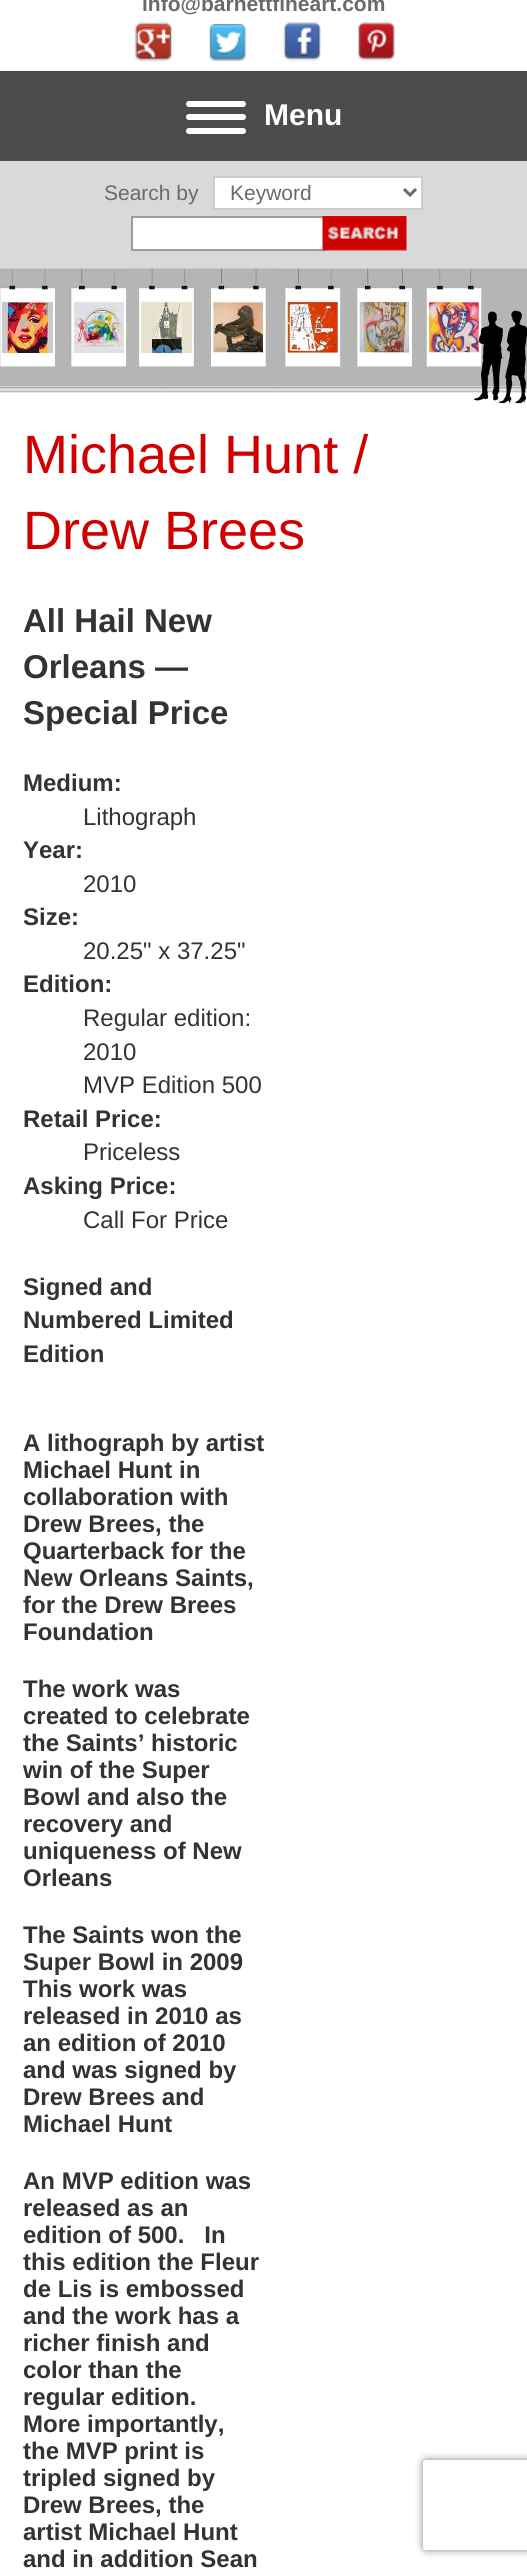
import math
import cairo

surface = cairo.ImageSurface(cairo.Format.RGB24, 527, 2571)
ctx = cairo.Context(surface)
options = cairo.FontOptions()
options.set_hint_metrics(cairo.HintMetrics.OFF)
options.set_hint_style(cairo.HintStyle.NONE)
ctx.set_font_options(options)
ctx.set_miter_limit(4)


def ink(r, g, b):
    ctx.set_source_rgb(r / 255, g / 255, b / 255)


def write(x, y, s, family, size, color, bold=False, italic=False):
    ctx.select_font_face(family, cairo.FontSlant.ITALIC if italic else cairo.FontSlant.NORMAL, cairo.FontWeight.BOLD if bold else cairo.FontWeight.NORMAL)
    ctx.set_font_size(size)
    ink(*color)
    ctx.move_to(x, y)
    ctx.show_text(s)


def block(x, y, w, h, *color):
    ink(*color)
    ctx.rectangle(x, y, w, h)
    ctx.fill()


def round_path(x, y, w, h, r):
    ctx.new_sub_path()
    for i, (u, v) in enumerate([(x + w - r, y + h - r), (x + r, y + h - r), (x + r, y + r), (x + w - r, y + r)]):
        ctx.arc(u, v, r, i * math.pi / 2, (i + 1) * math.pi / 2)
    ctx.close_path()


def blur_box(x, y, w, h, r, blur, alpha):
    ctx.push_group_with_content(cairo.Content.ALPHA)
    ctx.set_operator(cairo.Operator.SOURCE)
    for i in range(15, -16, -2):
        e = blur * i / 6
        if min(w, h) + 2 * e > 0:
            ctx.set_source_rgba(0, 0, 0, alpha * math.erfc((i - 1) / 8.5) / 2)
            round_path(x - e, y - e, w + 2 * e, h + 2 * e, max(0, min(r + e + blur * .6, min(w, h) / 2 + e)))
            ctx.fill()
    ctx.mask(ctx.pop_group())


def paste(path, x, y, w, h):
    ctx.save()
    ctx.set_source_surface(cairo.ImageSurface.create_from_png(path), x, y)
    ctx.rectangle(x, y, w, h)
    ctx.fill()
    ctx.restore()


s1 = dict(family="Liberation Sans", size=21, color=(106, 106, 106), bold=True)
s2 = dict(family="Liberation Sans", size=30, color=(255, 255, 255), bold=True)
s3 = dict(family="Liberation Sans", size=21, color=(106, 106, 106))
s4 = dict(family="Liberation Sans", size=54, color=(208, 0, 0))
s5 = dict(family="Liberation Sans", size=33, color=(51, 51, 51), bold=True)
s6 = dict(family="Liberation Sans", size=24, color=(51, 51, 51), bold=True)
s7 = dict(family="Liberation Sans", size=24, color=(51, 51, 51))

ink(255, 255, 255)
ctx.paint()
write(142, 11, "info@barnettfineart.com", **s1)
paste("pic1.png", 134, 22, 39, 40)
paste("pic2.png", 209, 24, 38, 38)
paste("pic3.png", 283, 22, 38, 40)
paste("pic4.png", 358, 22, 37, 40)
block(0, 71, 527, 90, 76, 76, 76)
ink(255, 255, 255)
round_path(186, 101, 60, 6, 3)
ctx.fill()
write(264, 125, "Menu", **s2)
round_path(186, 114, 60, 6, 3)
ctx.fill()
round_path(186, 128, 60, 6, 3)
ctx.fill()
block(0, 161, 527, 108, 217, 217, 217)
write(104, 200, "Search by", **s3)
ink(255, 255, 255)
ctx.rectangle(214, 177, 208, 32)
ctx.fill_preserve()
ink(204, 204, 204)
ctx.stroke()
ctx.new_path()
ctx.move_to(404, 189)
ctx.line_to(410, 195)
ctx.line_to(416, 189)
ink(106, 106, 106)
ctx.set_line_width(3)
ctx.stroke()
write(230, 200, "Keyword", **s3)
block(133, 218, 190, 31, 255, 255, 255)
ctx.rectangle(132, 217, 193, 33)
ink(156, 156, 156)
ctx.set_line_width(2)
ctx.stroke()
paste("pic5.png", 322, 216, 85, 35)
paste("pic6.png", 0, 268, 527, 136)
write(23, 473, "Michael Hunt /", **s4)
write(23, 549, "Drew Brees", **s4)
write(23, 632, "All Hail New", **s5)
write(23, 678, "Orleans —", **s5)
write(23, 724, "Special Price", **s5)
write(23, 791, "Medium:", **s6)
write(83, 825, "Lithograph", **s7)
write(23, 858, "Year:", **s6)
write(83, 892, "2010", **s7)
write(23, 925, "Size:", **s6)
write(83, 959, "20.25\" x 37.25\"", **s7)
write(23, 992, "Edition:", **s6)
write(83, 1026, "Regular edition:", **s7)
write(83, 1060, "2010", **s7)
write(83, 1093, "MVP Edition 500", **s7)
write(23, 1127, "Retail Price:", **s6)
write(83, 1160, "Priceless", **s7)
write(23, 1194, "Asking Price:", **s6)
write(83, 1228, "Call For Price", **s7)
write(23, 1295, "Signed and", **s6)
write(23, 1328, "Numbered Limited", **s6)
write(23, 1362, "Edition", **s6)
write(23, 1451, "A lithograph by artist", **s6)
write(23, 1478, "Michael Hunt in", **s6)
write(23, 1505, "collaboration with", **s6)
write(23, 1532, "Drew Brees, the", **s6)
write(23, 1559, "Quarterback for the", **s6)
write(23, 1586, "New Orleans Saints,", **s6)
write(23, 1613, "for the Drew Brees", **s6)
write(23, 1640, "Foundation", **s6)
write(23, 1697, "The work was", **s6)
write(23, 1724, "created to celebrate", **s6)
write(23, 1751, "the Saints’ historic", **s6)
write(23, 1778, "win of the Super", **s6)
write(23, 1805, "Bowl and also the", **s6)
write(23, 1832, "recovery and", **s6)
write(23, 1859, "uniqueness of New", **s6)
write(23, 1886, "Orleans", **s6)
write(23, 1943, "The Saints won the", **s6)
write(23, 1970, "Super Bowl in 2009", **s6)
write(23, 1997, "This work was", **s6)
write(23, 2024, "released in 2010 as", **s6)
write(23, 2051, "an edition of 2010", **s6)
write(23, 2078, "and was signed by", **s6)
write(23, 2105, "Drew Brees and", **s6)
write(23, 2132, "Michael Hunt", **s6)
write(23, 2189, "An MVP edition was", **s6)
write(23, 2216, "released as an", **s6)
write(23, 2243, "edition of 500.   In", **s6)
write(23, 2270, "this edition the Fleur", **s6)
write(23, 2297, "de Lis is embossed", **s6)
write(23, 2324, "and the work has a", **s6)
write(23, 2351, "richer finish and", **s6)
write(23, 2378, "color than the", **s6)
write(23, 2405, "regular edition.", **s6)
write(23, 2432, "More importantly,", **s6)
write(23, 2459, "the MVP print is", **s6)
write(23, 2486, "tripled signed by", **s6)
write(23, 2513, "Drew Brees, the", **s6)
write(23, 2540, "artist Michael Hunt", **s6)
write(23, 2567, "and in addition Sean", **s6)
ctx.save()
ctx.set_fill_rule(cairo.FillRule.EVEN_ODD)
ctx.new_path()
ctx.move_to(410, 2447)
ctx.line_to(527, 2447)
ctx.line_to(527, 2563)
ctx.line_to(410, 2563)
ctx.close_path()
ctx.move_to(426, 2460)
ctx.line_to(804, 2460)
ctx.curve_to(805.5, 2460, 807, 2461.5, 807, 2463)
ctx.line_to(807, 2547)
ctx.curve_to(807, 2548.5, 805.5, 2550, 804, 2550)
ctx.line_to(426, 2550)
ctx.curve_to(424.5, 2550, 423, 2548.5, 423, 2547)
ctx.line_to(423, 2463)
ctx.curve_to(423, 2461.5, 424.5, 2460, 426, 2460)
ctx.close_path()
ctx.clip()
ink(128, 128, 128)
blur_box(423, 2460, 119, 90, 3, 4, 1)
ctx.restore()
surface.write_to_png("screenshot.png")
